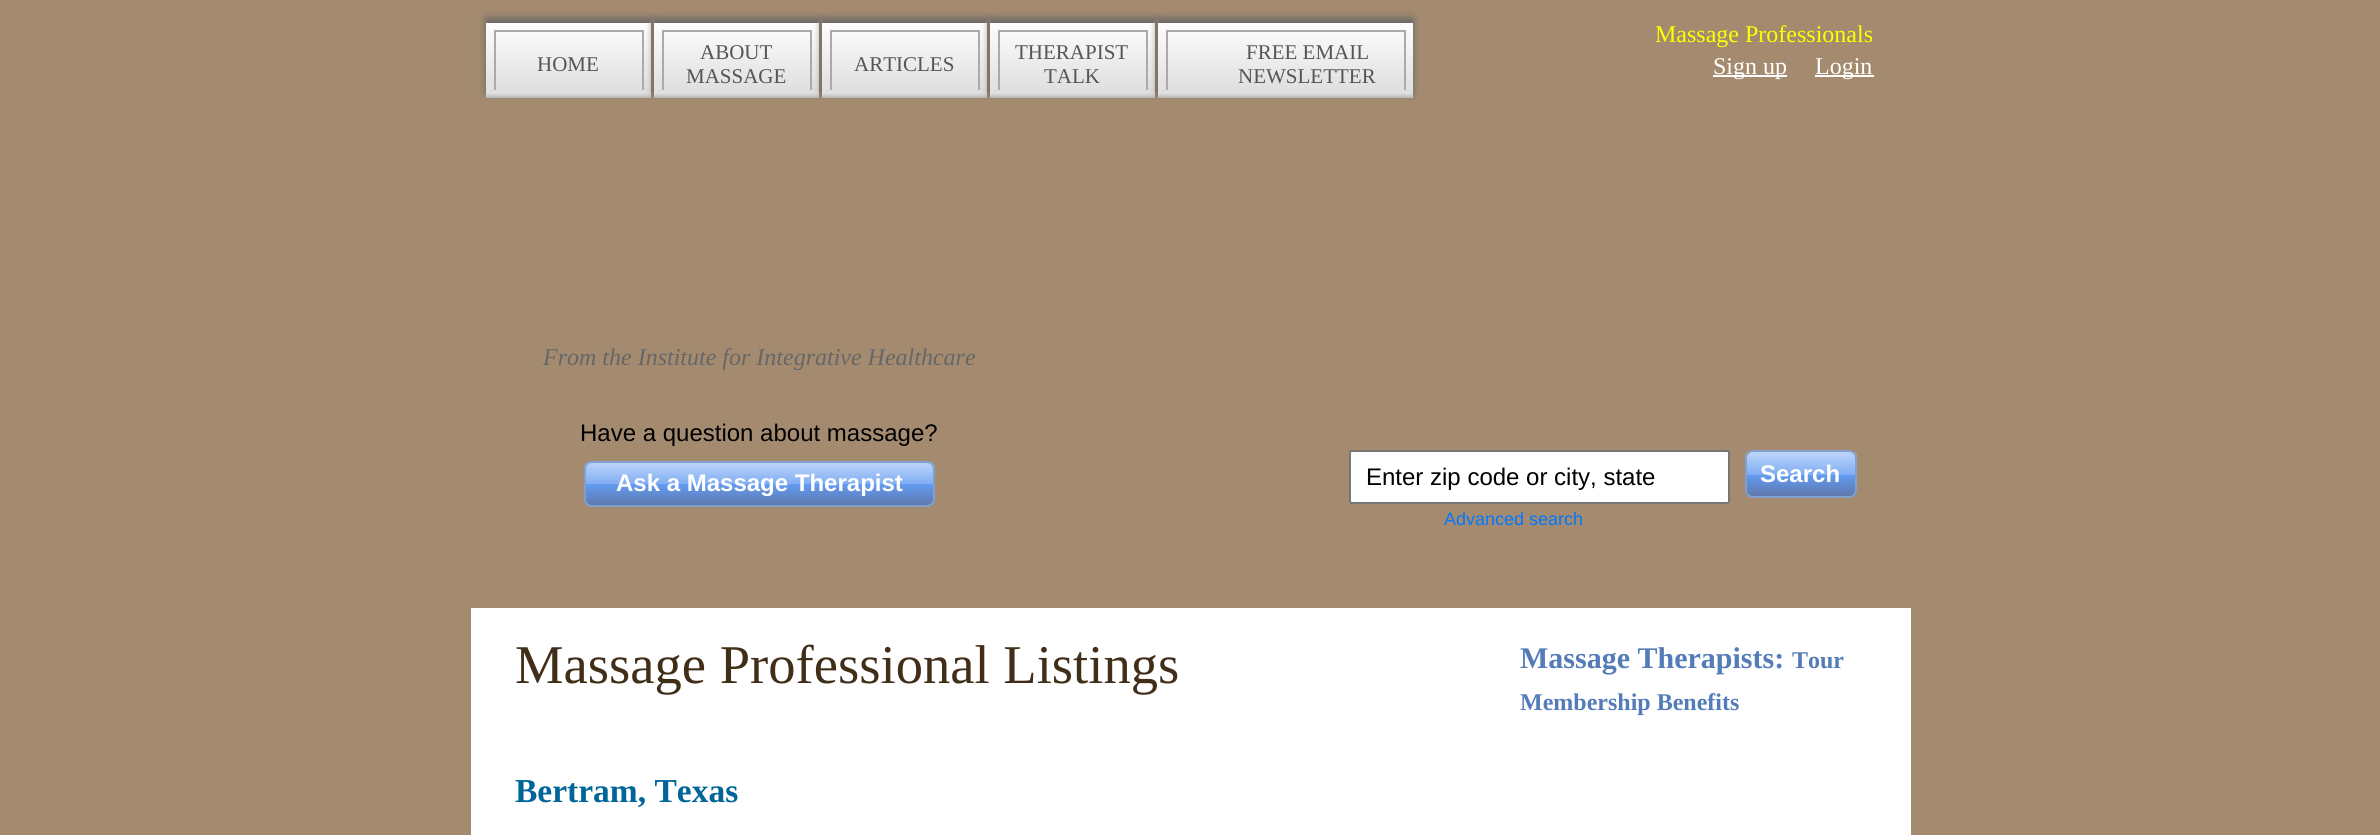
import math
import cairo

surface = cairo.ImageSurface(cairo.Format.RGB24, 2380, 835)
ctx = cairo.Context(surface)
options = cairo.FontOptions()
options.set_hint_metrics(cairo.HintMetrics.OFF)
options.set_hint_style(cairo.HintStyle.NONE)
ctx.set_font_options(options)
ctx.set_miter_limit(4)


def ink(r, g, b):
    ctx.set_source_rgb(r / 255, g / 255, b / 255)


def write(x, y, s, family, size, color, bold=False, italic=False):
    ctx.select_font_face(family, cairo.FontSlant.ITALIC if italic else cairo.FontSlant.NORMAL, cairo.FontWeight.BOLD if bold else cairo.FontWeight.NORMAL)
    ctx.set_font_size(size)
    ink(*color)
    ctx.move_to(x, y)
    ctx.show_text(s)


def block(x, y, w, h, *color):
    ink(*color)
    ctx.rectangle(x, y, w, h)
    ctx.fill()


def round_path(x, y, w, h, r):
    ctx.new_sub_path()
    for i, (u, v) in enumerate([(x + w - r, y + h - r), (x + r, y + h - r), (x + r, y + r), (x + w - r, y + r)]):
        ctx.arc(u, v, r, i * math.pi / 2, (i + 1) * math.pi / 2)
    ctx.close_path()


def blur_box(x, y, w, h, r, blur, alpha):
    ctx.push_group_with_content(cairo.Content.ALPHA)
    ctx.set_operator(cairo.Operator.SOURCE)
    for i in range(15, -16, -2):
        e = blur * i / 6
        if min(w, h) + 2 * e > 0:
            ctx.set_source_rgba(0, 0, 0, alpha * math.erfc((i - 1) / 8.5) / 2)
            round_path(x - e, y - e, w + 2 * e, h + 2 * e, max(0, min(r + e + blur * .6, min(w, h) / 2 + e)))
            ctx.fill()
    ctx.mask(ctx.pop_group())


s1 = dict(family="Liberation Serif", size=21, color=(85, 85, 85))
s2 = dict(family="Liberation Serif", size=24, color=(255, 255, 0))
s3 = dict(family="Liberation Serif", size=24, color=(255, 255, 255))
s4 = dict(family="Liberation Serif", size=24, color=(102, 102, 102), italic=True)
s5 = dict(family="Liberation Sans", size=24, color=(0, 0, 0))
s6 = dict(family="Liberation Sans", size=24, color=(255, 255, 255), bold=True)
s7 = dict(family="Liberation Sans", size=18, color=(0, 119, 255))
s8 = dict(family="Liberation Serif", size=54.6, color=(65, 46, 24))
s9 = dict(family="Liberation Serif", size=33.5, color=(0, 102, 153), bold=True)
s10 = dict(family="Liberation Serif", size=30, color=(84, 124, 184), bold=True)
s11 = dict(family="Liberation Serif", size=24, color=(84, 124, 184), bold=True)

ink(164, 139, 112)
ctx.paint()
ink(102, 102, 102)
blur_box(486, 18, 165, 75, 0, 4, 1)
gradient = cairo.LinearGradient(569, 22, 569, 98)
gradient.add_color_stop_rgba(0, 0.996, 0.996, 0.996, 1)
gradient.add_color_stop_rgba(0.94, 0.871, 0.871, 0.871, 1)
gradient.add_color_stop_rgba(1, 0.714, 0.714, 0.714, 1)
ctx.set_source(gradient)
ctx.rectangle(486, 23, 165, 75)
ctx.fill()
block(494, 30, 150, 2, 170, 170, 170)
block(642, 30, 2, 60, 170, 170, 170)
block(494, 30, 2, 60, 170, 170, 170)
write(537, 71, "HOME", **s1)
ink(102, 102, 102)
blur_box(654, 18, 165, 75, 0, 4, 1)
gradient = cairo.LinearGradient(737, 22, 737, 98)
gradient.add_color_stop_rgba(0, 0.996, 0.996, 0.996, 1)
gradient.add_color_stop_rgba(0.94, 0.871, 0.871, 0.871, 1)
gradient.add_color_stop_rgba(1, 0.714, 0.714, 0.714, 1)
ctx.set_source(gradient)
ctx.rectangle(654, 23, 165, 75)
ctx.fill()
block(662, 30, 150, 2, 170, 170, 170)
block(810, 30, 2, 60, 170, 170, 170)
block(662, 30, 2, 60, 170, 170, 170)
write(700, 59, "ABOUT", **s1)
write(686, 83, "MASSAGE", **s1)
ink(102, 102, 102)
blur_box(822, 18, 165, 75, 0, 4, 1)
gradient = cairo.LinearGradient(905, 22, 905, 98)
gradient.add_color_stop_rgba(0, 0.996, 0.996, 0.996, 1)
gradient.add_color_stop_rgba(0.94, 0.871, 0.871, 0.871, 1)
gradient.add_color_stop_rgba(1, 0.714, 0.714, 0.714, 1)
ctx.set_source(gradient)
ctx.rectangle(822, 23, 165, 75)
ctx.fill()
block(830, 30, 150, 2, 170, 170, 170)
block(978, 30, 2, 60, 170, 170, 170)
block(830, 30, 2, 60, 170, 170, 170)
write(854, 71, "ARTICLES", **s1)
ink(102, 102, 102)
blur_box(990, 18, 165, 75, 0, 4, 1)
gradient = cairo.LinearGradient(1073, 22, 1073, 98)
gradient.add_color_stop_rgba(0, 0.996, 0.996, 0.996, 1)
gradient.add_color_stop_rgba(0.94, 0.871, 0.871, 0.871, 1)
gradient.add_color_stop_rgba(1, 0.714, 0.714, 0.714, 1)
ctx.set_source(gradient)
ctx.rectangle(990, 23, 165, 75)
ctx.fill()
block(998, 30, 150, 2, 170, 170, 170)
block(1146, 30, 2, 60, 170, 170, 170)
block(998, 30, 2, 60, 170, 170, 170)
write(1015, 59, "THERAPIST", **s1)
write(1044, 83, "TALK", **s1)
ink(102, 102, 102)
blur_box(1158, 18, 255, 75, 0, 4, 1)
gradient = cairo.LinearGradient(1286, 22, 1286, 98)
gradient.add_color_stop_rgba(0, 0.996, 0.996, 0.996, 1)
gradient.add_color_stop_rgba(0.94, 0.871, 0.871, 0.871, 1)
gradient.add_color_stop_rgba(1, 0.714, 0.714, 0.714, 1)
ctx.set_source(gradient)
ctx.rectangle(1158, 23, 255, 75)
ctx.fill()
block(1166, 30, 240, 2, 170, 170, 170)
block(1404, 30, 2, 60, 170, 170, 170)
block(1166, 30, 2, 60, 170, 170, 170)
write(1246, 59, "FREE EMAIL", **s1)
write(1238, 83, "NEWSLETTER", **s1)
write(1655, 42, "Massage Professionals", **s2)
block(1713, 75, 74, 2, 255, 255, 255)
write(1713, 74, "Sign up", **s3)
block(1815, 75, 59, 2, 255, 255, 255)
write(1815, 74, "Login", **s3)
write(543, 365, "From the Institute for Integrative Healthcare", **s4)
write(580, 441, "Have a question about massage?", **s5)
ctx.save()
round_path(584, 461, 351, 46, 8)
ctx.clip()
gradient = cairo.LinearGradient(759, 462, 759, 506)
gradient.add_color_stop_rgba(0, 0.741, 0.835, 0.976, 1)
gradient.add_color_stop_rgba(0.5, 0.506, 0.682, 0.953, 1)
gradient.add_color_stop_rgba(0.51, 0.384, 0.608, 0.949, 1)
gradient.add_color_stop_rgba(1, 0.373, 0.467, 0.667, 1)
ctx.set_source(gradient)
ctx.rectangle(584, 462, 351, 44)
ctx.fill()
ctx.restore()
round_path(585, 462, 349, 44, 7)
ink(131, 159, 203)
ctx.stroke()
write(616, 491, "Ask a Massage Therapist", **s6)
round_path(1350, 451, 379, 52, 2)
ctx.fill_preserve()
ink(118, 118, 118)
ctx.stroke()
write(1366, 485, "Enter zip code or city, state", **s5)
ctx.save()
round_path(1745, 450, 112, 48, 8)
ctx.clip()
gradient = cairo.LinearGradient(1801, 452, 1801, 497)
gradient.add_color_stop_rgba(0, 0.741, 0.835, 0.976, 1)
gradient.add_color_stop_rgba(0.5, 0.506, 0.682, 0.953, 1)
gradient.add_color_stop_rgba(0.51, 0.384, 0.608, 0.949, 1)
gradient.add_color_stop_rgba(1, 0.373, 0.467, 0.667, 1)
ctx.set_source(gradient)
ctx.rectangle(1745, 452, 112, 45)
ctx.fill()
ctx.restore()
round_path(1746, 451, 110, 46, 7)
ink(131, 159, 203)
ctx.stroke()
write(1760, 482, "Search", **s6)
write(1444, 525, "Advanced search", **s7)
block(471, 608, 1440, 227, 255, 255, 255)
write(515, 683, "Massage Professional Listings", **s8)
write(515, 802, "Bertram, Texas", **s9)
write(1520, 668, "Massage Therapists:", **s10)
write(1792, 668, "Tour", **s11)
write(1520, 710, "Membership Benefits", **s11)
surface.write_to_png("screenshot.png")
